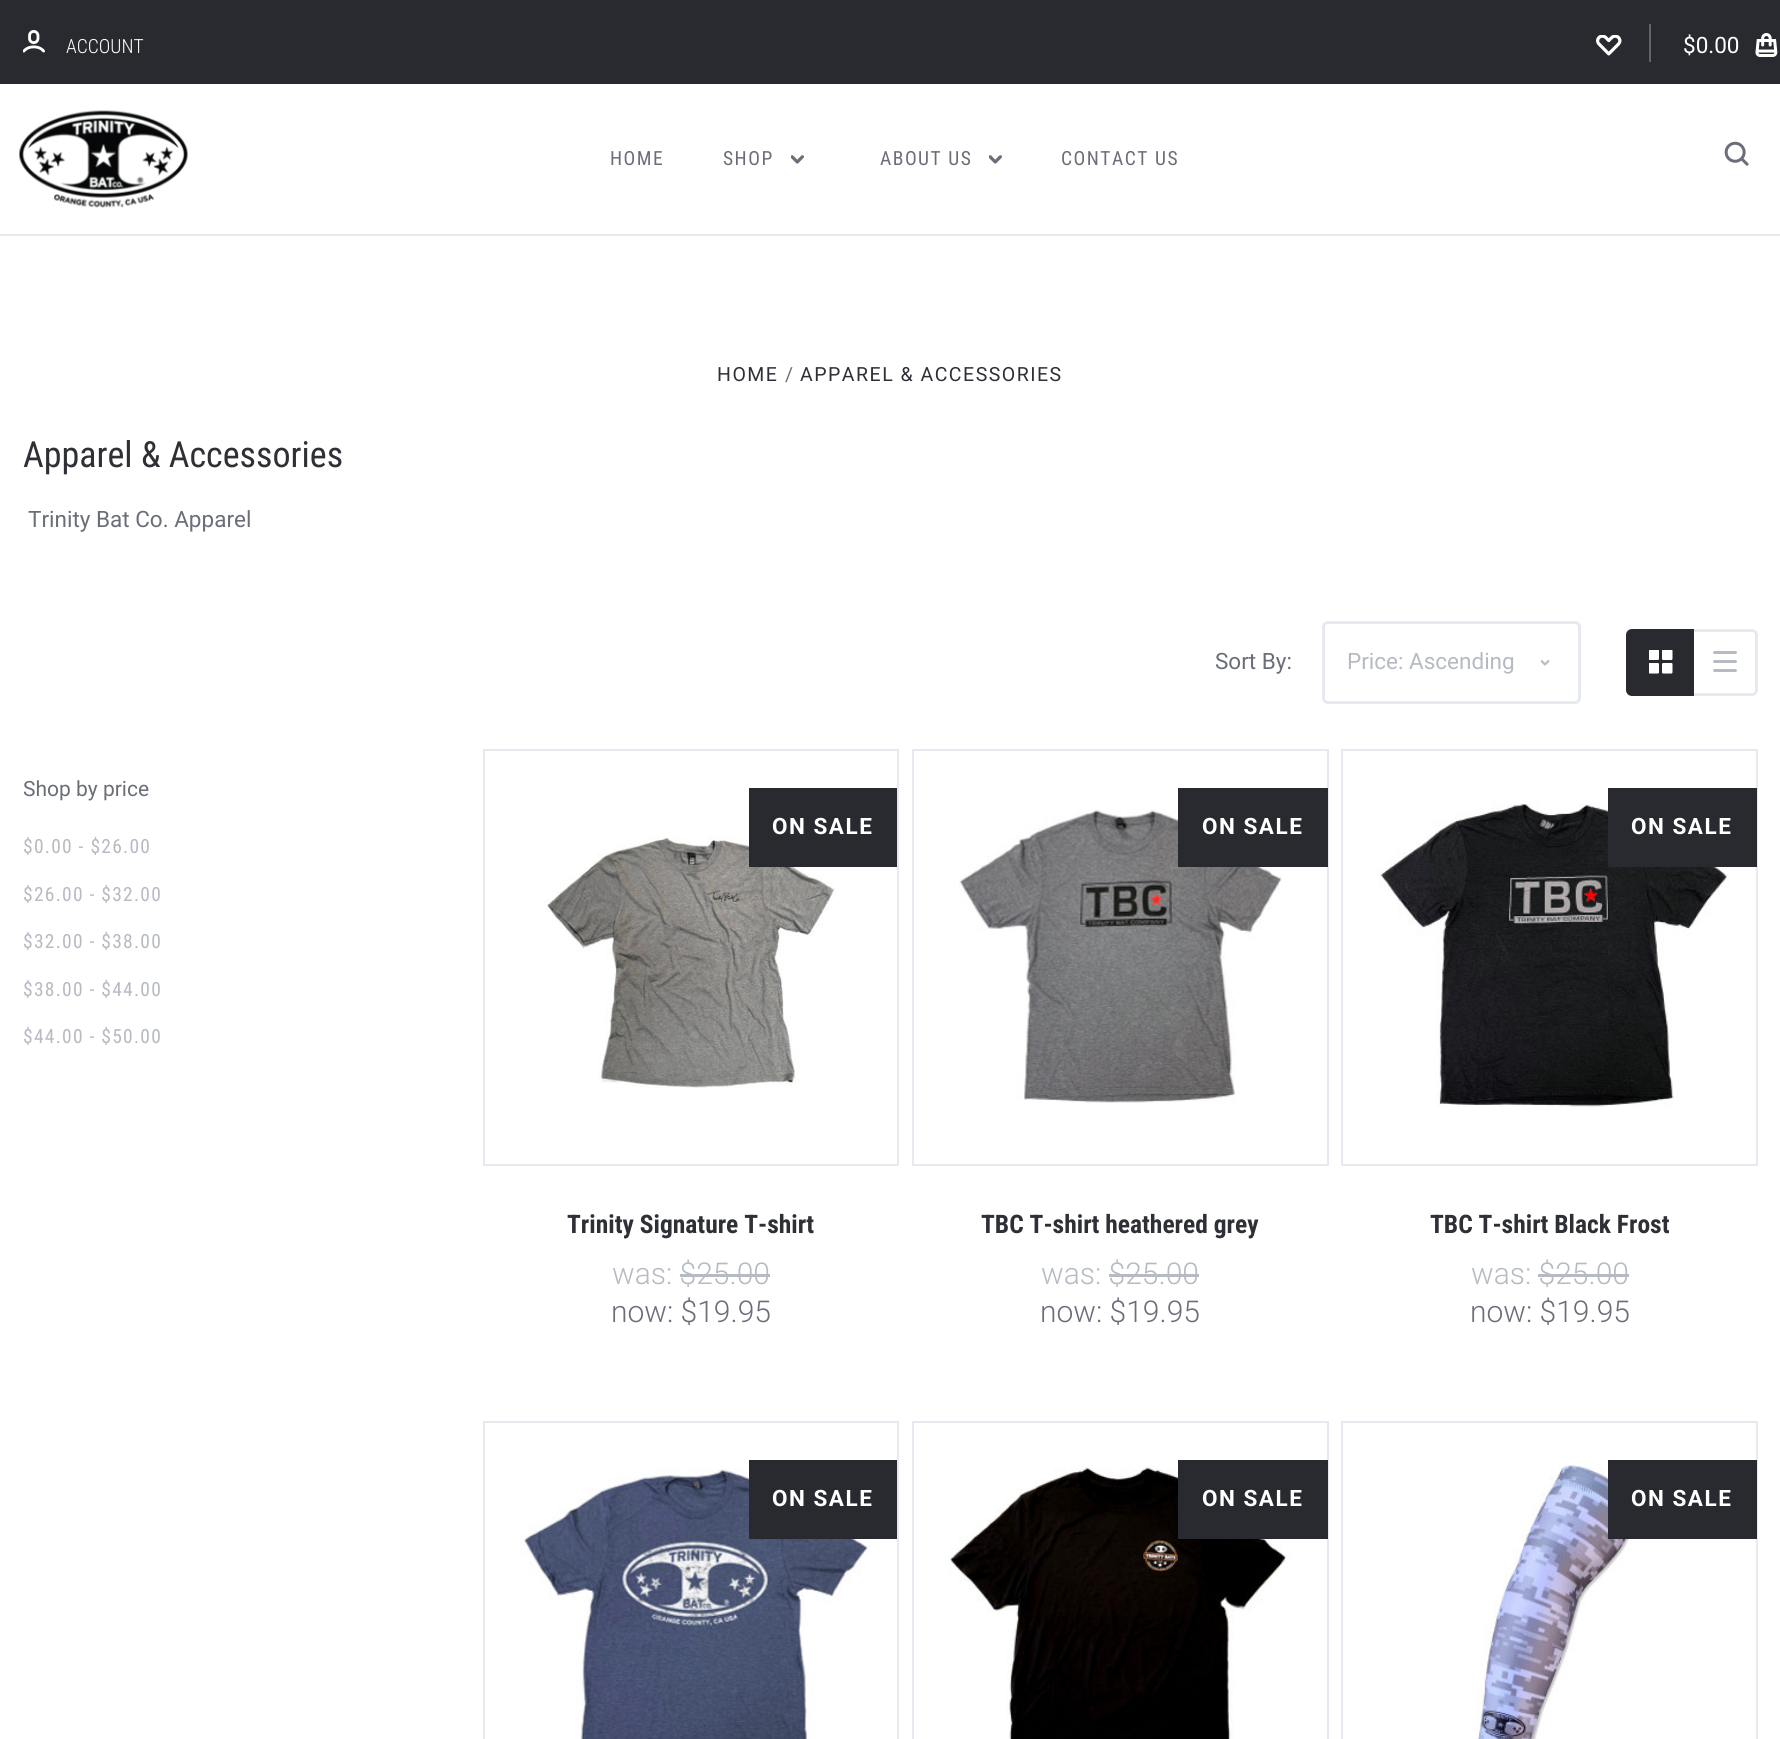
import math
import cairo

surface = cairo.ImageSurface(cairo.Format.RGB24, 1780, 1739)
ctx = cairo.Context(surface)
options = cairo.FontOptions()
options.set_hint_metrics(cairo.HintMetrics.OFF)
options.set_hint_style(cairo.HintStyle.NONE)
ctx.set_font_options(options)
ctx.set_miter_limit(4)


def ink(r, g, b):
    ctx.set_source_rgb(r / 255, g / 255, b / 255)


def write(x, y, s, family, size, color, bold=False, italic=False):
    ctx.select_font_face(family, cairo.FontSlant.ITALIC if italic else cairo.FontSlant.NORMAL, cairo.FontWeight.BOLD if bold else cairo.FontWeight.NORMAL)
    ctx.set_font_size(size)
    ink(*color)
    ctx.move_to(x, y)
    ctx.show_text(s)


def write_spaced(x, y, s, letter, word):
    ctx.move_to(x, y)
    for ch in s:
        ctx.show_text(ch)
        ctx.rel_move_to(letter + word * (ch == ' '), 0)


def block(x, y, w, h, *color):
    ink(*color)
    ctx.rectangle(x, y, w, h)
    ctx.fill()


def round_path(x, y, w, h, r):
    ctx.new_sub_path()
    for i, (u, v) in enumerate([(x + w - r, y + h - r), (x + r, y + h - r), (x + r, y + r), (x + w - r, y + r)]):
        ctx.arc(u, v, r, i * math.pi / 2, (i + 1) * math.pi / 2)
    ctx.close_path()


def paste(path, x, y, w, h):
    ctx.save()
    ctx.set_source_surface(cairo.ImageSurface.create_from_png(path), x, y)
    ctx.rectangle(x, y, w, h)
    ctx.fill()
    ctx.restore()


s1 = dict(family="Roboto Condensed Light", size=19.5, color=(255, 255, 255))
s2 = dict(family="Roboto", size=22.5, color=(255, 255, 255))
s3 = dict(family="Roboto Condensed", size=36, color=(46, 48, 54))
s4 = dict(family="Roboto", size=22.5, color=(107, 110, 121))
s5 = dict(family="Roboto", size=22.5, color=(182, 186, 194))
s6 = dict(family="Roboto", size=21, color=(107, 110, 121))
s7 = dict(family="Roboto Condensed", size=25.5, color=(46, 48, 54), bold=True)
s8 = dict(family="Roboto Light", size=30, color=(182, 186, 194))
s9 = dict(family="Roboto Light", size=30, color=(107, 110, 121))

ink(255, 255, 255)
ctx.paint()
block(0, 234, 1780, 2, 230, 233, 239)
block(0, 0, 1780, 84, 40, 42, 47)
paste("pic1.png", 23, 30, 22, 23)
write(66, 53, "ACCOUNT", **s1)
paste("pic2.png", 1596, 35, 26, 21)
block(1649, 24, 2, 38, 97, 99, 105)
write(1683, 53, "$0.00", **s2)
paste("pic3.png", 1755, 33, 23, 24)
paste("pic4.png", 19, 110, 169, 98)
ctx.select_font_face("Roboto Condensed")
ctx.set_font_size(19.5)
ink(107, 110, 121)
write_spaced(610, 165, "HOME", 1.5, 0)
write_spaced(723, 165, "SHOP", 1.5, 0)
paste("pic5.png", 791, 155, 13, 9)
write_spaced(880, 165, "ABOUT US", 1.5, 0)
paste("pic5.png", 989, 155, 13, 9)
write_spaced(1061, 165, "CONTACT US", 1.5, 0)
paste("pic6.png", 1724, 141, 25, 25)
ctx.select_font_face("Roboto")
ink(46, 48, 54)
write_spaced(717, 381, "HOME", 1.5, 0)
ink(107, 110, 121)
write_spaced(785, 381, "/", 1.5, 0)
ink(46, 48, 54)
write_spaced(800, 381, "APPAREL & ACCESSORIES", 1.5, 0)
write(23, 467, "Apparel & Accessories", **s3)
write(28, 527, "Trinity Bat Co. Apparel", **s4)
write(1215, 669, "Sort By:", **s4)
round_path(1323.5, 622.5, 256, 80, 4.5)
ink(230, 233, 239)
ctx.set_line_width(3)
ctx.stroke()
write(1347, 669, "Price: Ascending", **s5)
paste("pic7.png", 1541, 660, 9, 6)
ctx.new_path()
ctx.move_to(1692.5, 630.5)
ctx.line_to(1752, 630.5)
ctx.curve_to(1754.5, 630.5, 1756.5, 632.5, 1756.5, 635)
ctx.line_to(1756.5, 690)
ctx.curve_to(1756.5, 692.5, 1754.5, 694.5, 1752, 694.5)
ctx.line_to(1692.5, 694.5)
ctx.close_path()
ink(230, 233, 239)
ctx.stroke()
ink(40, 42, 47)
ctx.new_path()
ctx.move_to(1632, 630.5)
ctx.line_to(1692.5, 630.5)
ctx.line_to(1692.5, 694.5)
ctx.line_to(1632, 694.5)
ctx.curve_to(1629.5, 694.5, 1627.5, 692.5, 1627.5, 690)
ctx.line_to(1627.5, 635)
ctx.curve_to(1627.5, 632.5, 1629.5, 630.5, 1632, 630.5)
ctx.close_path()
ctx.fill_preserve()
ctx.stroke()
paste("pic8.png", 1649, 650, 24, 24)
paste("pic9.png", 1713, 651, 24, 21)
write(23, 796, "Shop by price", **s6)
ctx.select_font_face("Roboto Condensed")
ctx.set_font_size(19.5)
ink(182, 186, 194)
write_spaced(23, 853, "$0.00 - $26.00", 1.25, 0)
write_spaced(23, 901, "$26.00 - $32.00", 1.25, 0)
write_spaced(23, 948, "$32.00 - $38.00", 1.25, 0)
write_spaced(23, 996, "$38.00 - $44.00", 1.25, 0)
write_spaced(23, 1043, "$44.00 - $50.00", 1.25, 0)
ctx.rectangle(484, 750, 414, 415)
ink(230, 233, 239)
ctx.set_line_width(2)
ctx.stroke()
paste("pic10.png", 544, 837, 291, 251)
block(749, 788, 148, 79, 40, 42, 47)
ctx.select_font_face("Roboto", cairo.FontSlant.NORMAL, cairo.FontWeight.BOLD)
ctx.set_font_size(22.5)
ink(255, 255, 255)
write_spaced(772, 834, "ON SALE", 1.5, 0)
write(567, 1233, "Trinity Signature T-shirt", **s7)
write(612, 1284, "was: $25.00", **s8)
block(680, 1274, 90, 3, 182, 186, 194)
write(611, 1322, "now: $19.95", **s9)
ctx.rectangle(913, 750, 415, 415)
ink(230, 233, 239)
ctx.stroke()
paste("pic11.png", 959, 809, 323, 294)
block(1178, 788, 150, 79, 40, 42, 47)
ctx.select_font_face("Roboto", cairo.FontSlant.NORMAL, cairo.FontWeight.BOLD)
ctx.set_font_size(22.5)
ink(255, 255, 255)
write_spaced(1202, 834, "ON SALE", 1.5, 0)
write(981, 1233, "TBC T-shirt heathered grey", **s7)
write(1041, 1284, "was: $25.00", **s8)
block(1109, 1274, 90, 3, 182, 186, 194)
write(1040, 1322, "now: $19.95", **s9)
ctx.rectangle(1342, 750, 415, 415)
ink(230, 233, 239)
ctx.stroke()
paste("pic12.png", 1378, 802, 351, 305)
block(1608, 788, 149, 79, 40, 42, 47)
ctx.select_font_face("Roboto", cairo.FontSlant.NORMAL, cairo.FontWeight.BOLD)
ctx.set_font_size(22.5)
ink(255, 255, 255)
write_spaced(1631, 834, "ON SALE", 1.5, 0)
write(1430, 1233, "TBC T-shirt Black Frost", **s7)
write(1471, 1284, "was: $25.00", **s8)
block(1538, 1274, 91, 3, 182, 186, 194)
write(1470, 1322, "now: $19.95", **s9)
ctx.rectangle(484, 1422, 414, 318)
ink(230, 233, 239)
ctx.stroke()
paste("pic13.png", 520, 1468, 350, 271)
block(749, 1460, 148, 79, 40, 42, 47)
ctx.select_font_face("Roboto", cairo.FontSlant.NORMAL, cairo.FontWeight.BOLD)
ctx.set_font_size(22.5)
ink(255, 255, 255)
write_spaced(772, 1506, "ON SALE", 1.5, 0)
ctx.rectangle(913, 1422, 415, 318)
ink(230, 233, 239)
ctx.stroke()
paste("pic14.png", 949, 1466, 343, 273)
block(1178, 1460, 150, 79, 40, 42, 47)
ink(255, 255, 255)
write_spaced(1202, 1506, "ON SALE", 1.5, 0)
ctx.rectangle(1342, 1422, 415, 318)
ink(230, 233, 239)
ctx.stroke()
paste("pic15.png", 1476, 1465, 167, 274)
block(1608, 1460, 149, 79, 40, 42, 47)
ink(255, 255, 255)
write_spaced(1631, 1506, "ON SALE", 1.5, 0)
surface.write_to_png("screenshot.png")
